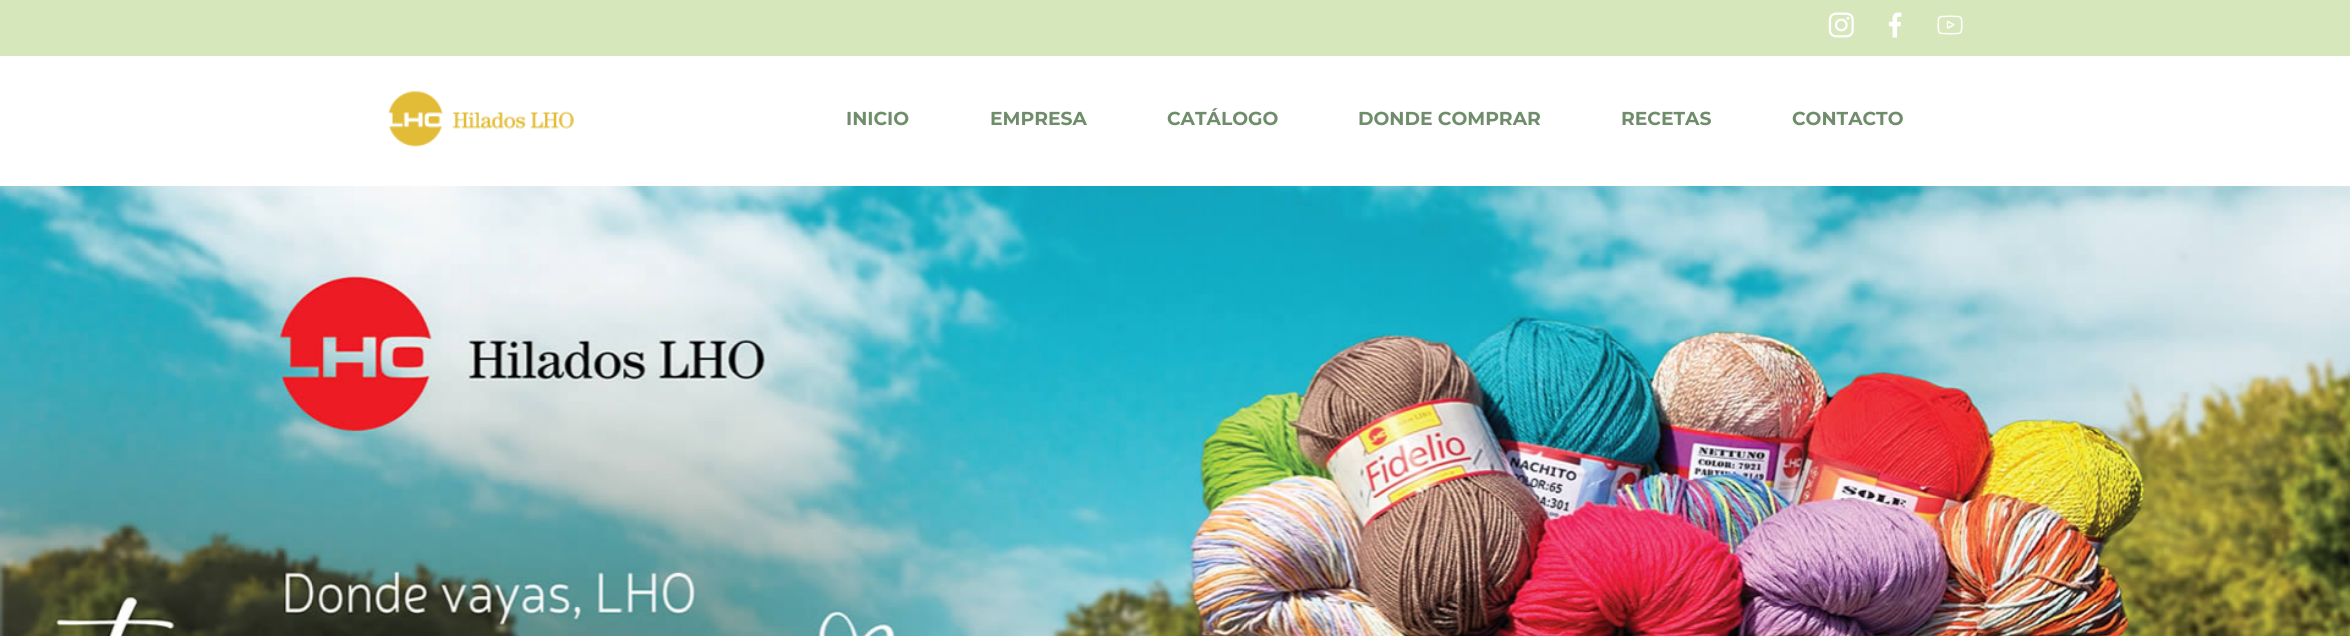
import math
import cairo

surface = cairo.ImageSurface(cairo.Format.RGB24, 2350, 636)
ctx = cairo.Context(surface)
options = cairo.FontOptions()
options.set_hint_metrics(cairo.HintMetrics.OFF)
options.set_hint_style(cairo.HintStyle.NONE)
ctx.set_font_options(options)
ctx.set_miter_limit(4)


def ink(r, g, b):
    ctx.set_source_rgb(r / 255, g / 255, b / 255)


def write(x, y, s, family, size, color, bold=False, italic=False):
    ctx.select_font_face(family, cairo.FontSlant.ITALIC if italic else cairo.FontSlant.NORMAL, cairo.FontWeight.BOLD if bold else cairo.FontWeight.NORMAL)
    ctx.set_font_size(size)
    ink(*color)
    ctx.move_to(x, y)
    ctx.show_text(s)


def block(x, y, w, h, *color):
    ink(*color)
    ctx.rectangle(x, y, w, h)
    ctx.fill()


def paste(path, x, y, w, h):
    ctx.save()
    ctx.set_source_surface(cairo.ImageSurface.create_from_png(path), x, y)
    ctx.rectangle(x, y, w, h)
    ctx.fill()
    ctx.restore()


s1 = dict(family="Montserrat", size=18.75, color=(111, 141, 107), bold=True)

ink(255, 255, 255)
ctx.paint()
block(0, 0, 2350, 56, 214, 231, 188)
paste("pic1.png", 1828, 12, 26, 26)
paste("pic2.png", 1888, 12, 14, 26)
paste("pic3.png", 1937, 15, 26, 20)
paste("pic4.png", 388, 91, 186, 56)
write(846, 125, "INICIO", **s1)
write(990, 125, "EMPRESA", **s1)
write(1167, 125, "CATÁLOGO", **s1)
write(1358, 125, "DONDE COMPRAR", **s1)
write(1621, 125, "RECETAS", **s1)
write(1792, 125, "CONTACTO", **s1)
paste("pic5.png", 0, 186, 2350, 450)
surface.write_to_png("screenshot.png")
